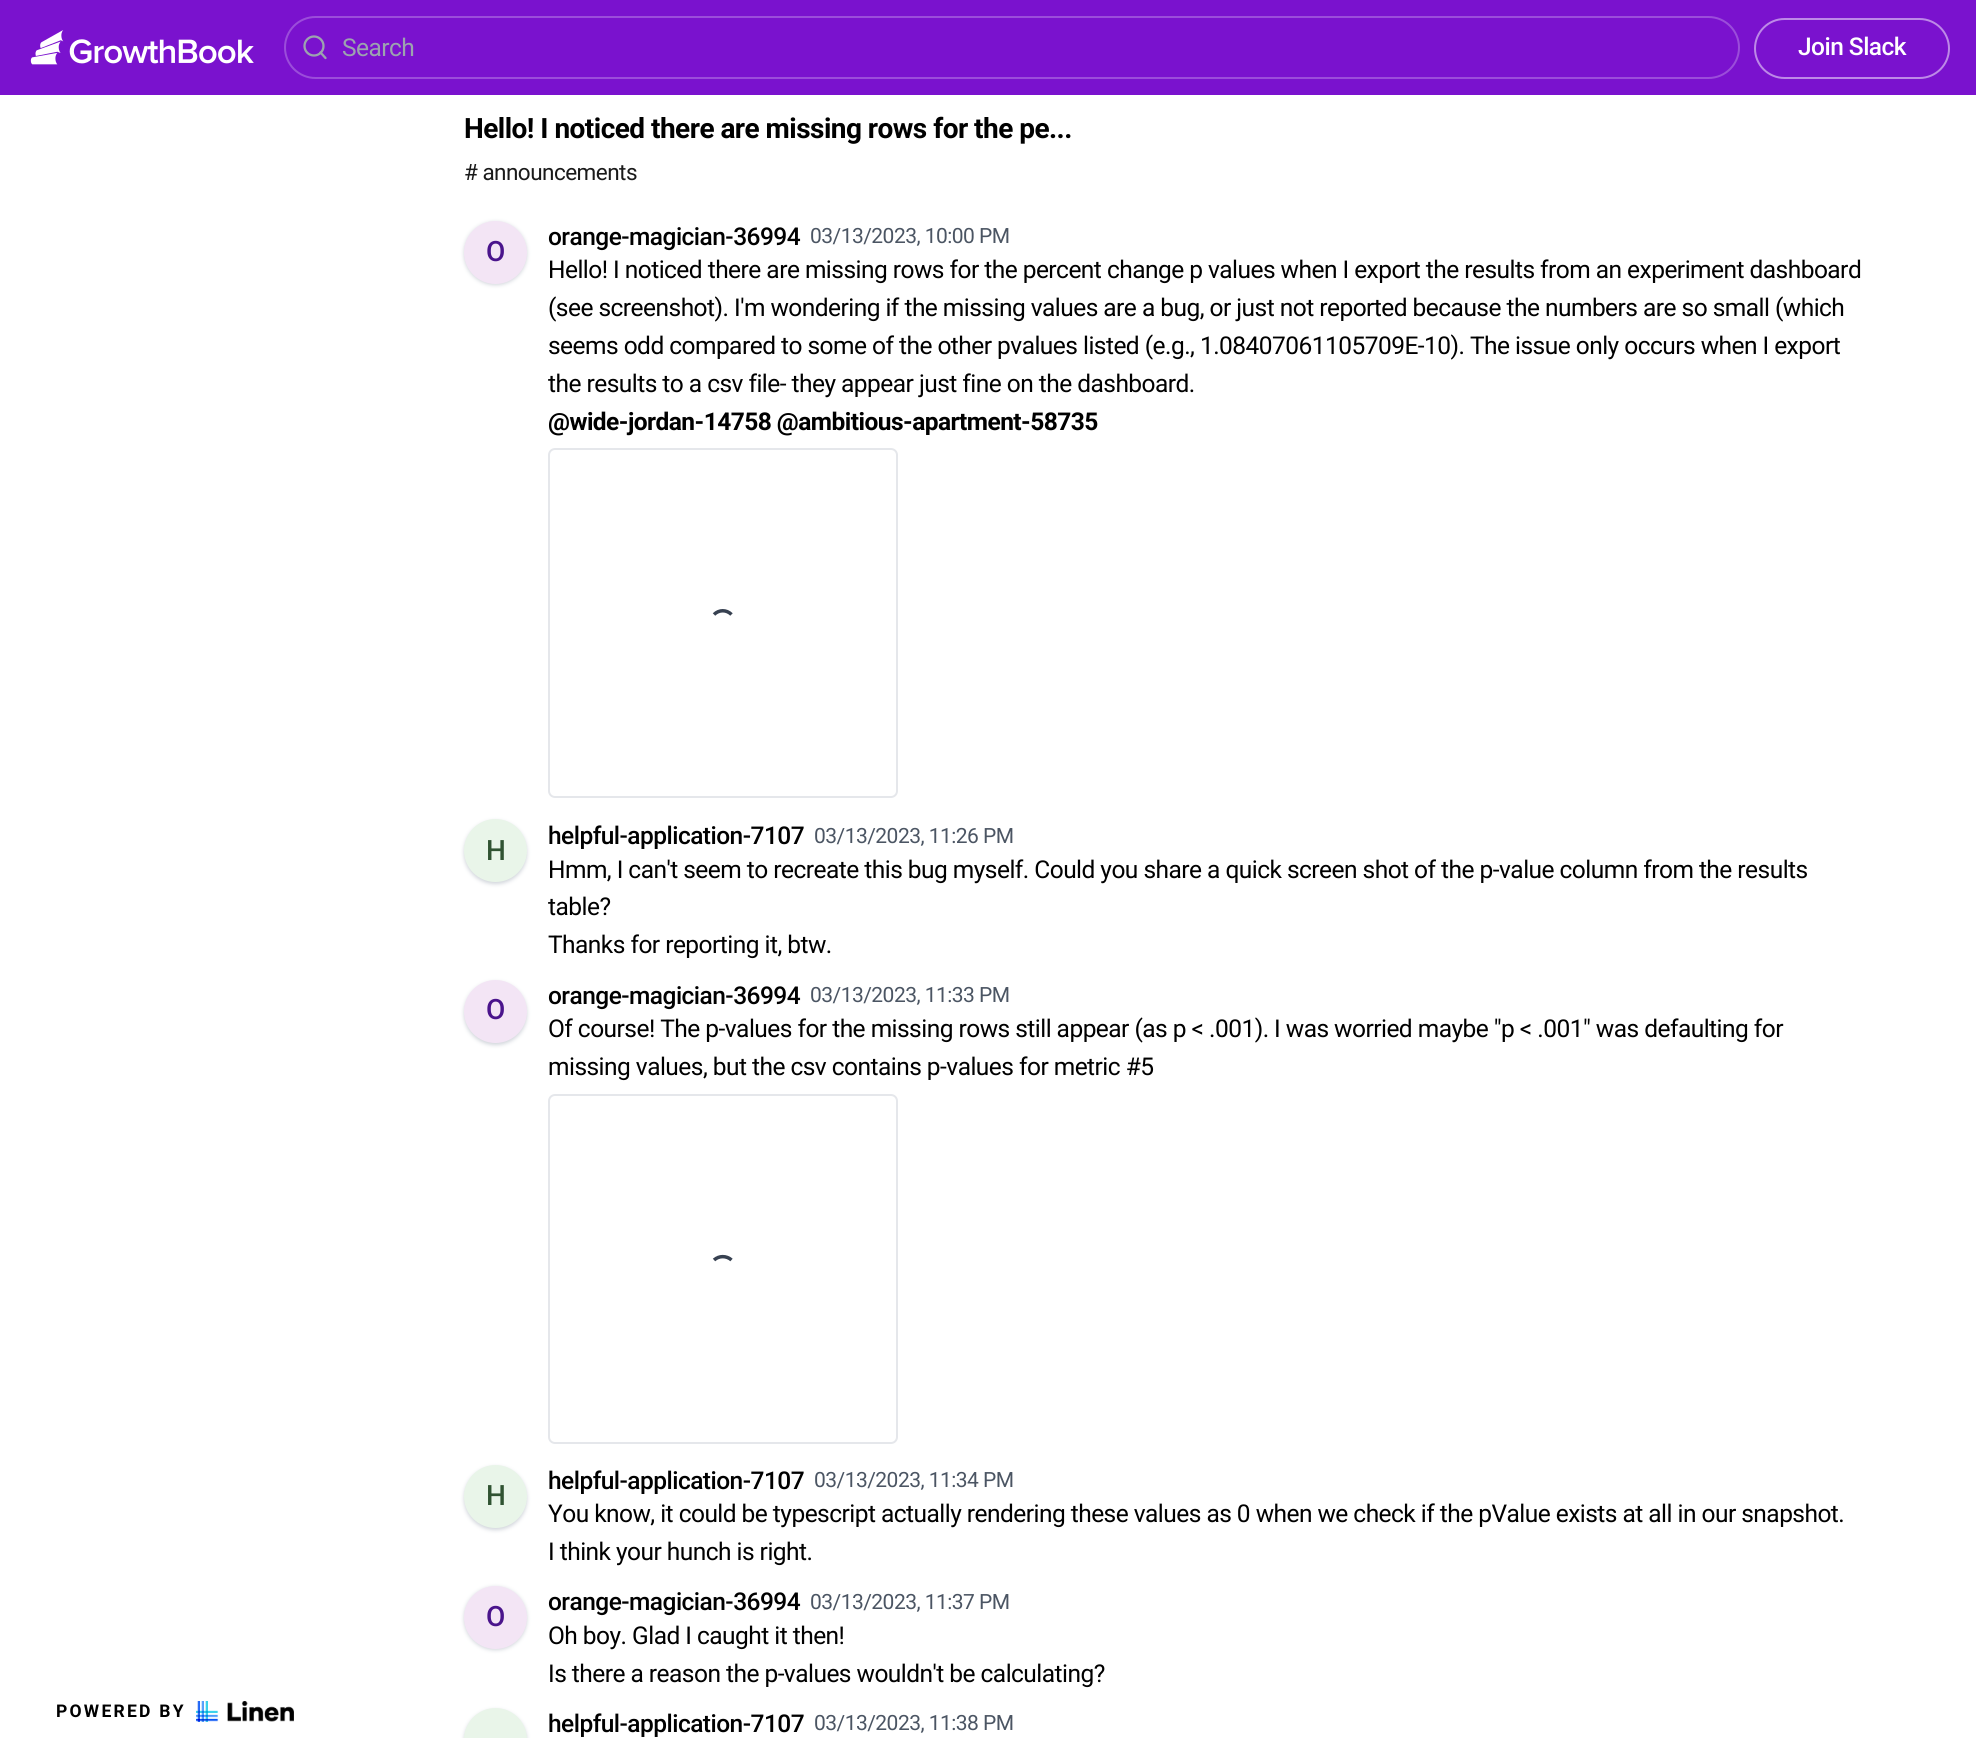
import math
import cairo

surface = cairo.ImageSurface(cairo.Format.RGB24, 1976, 1738)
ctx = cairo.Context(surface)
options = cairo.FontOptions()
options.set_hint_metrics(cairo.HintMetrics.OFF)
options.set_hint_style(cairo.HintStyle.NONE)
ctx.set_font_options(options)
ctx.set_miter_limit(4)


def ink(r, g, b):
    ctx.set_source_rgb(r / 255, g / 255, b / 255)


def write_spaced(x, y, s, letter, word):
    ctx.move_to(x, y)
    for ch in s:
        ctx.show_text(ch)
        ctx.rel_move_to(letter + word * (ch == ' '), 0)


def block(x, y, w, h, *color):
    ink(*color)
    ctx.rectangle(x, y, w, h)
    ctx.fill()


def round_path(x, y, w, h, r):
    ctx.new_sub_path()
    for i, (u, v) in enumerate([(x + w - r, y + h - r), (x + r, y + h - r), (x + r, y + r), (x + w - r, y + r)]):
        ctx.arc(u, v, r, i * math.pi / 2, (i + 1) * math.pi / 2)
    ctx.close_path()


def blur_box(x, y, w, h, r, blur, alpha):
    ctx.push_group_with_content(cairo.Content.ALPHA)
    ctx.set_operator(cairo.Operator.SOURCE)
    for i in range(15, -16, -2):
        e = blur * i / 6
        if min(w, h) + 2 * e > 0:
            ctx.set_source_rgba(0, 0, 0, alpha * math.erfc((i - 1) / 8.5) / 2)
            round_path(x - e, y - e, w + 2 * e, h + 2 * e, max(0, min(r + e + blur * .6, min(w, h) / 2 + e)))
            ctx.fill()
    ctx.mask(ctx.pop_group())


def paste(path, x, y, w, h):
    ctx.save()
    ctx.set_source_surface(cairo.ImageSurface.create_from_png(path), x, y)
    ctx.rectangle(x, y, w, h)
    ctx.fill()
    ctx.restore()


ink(255, 255, 255)
ctx.paint()
block(0, 0, 1976, 95, 122, 18, 206)
paste("pic1.png", 30, 30, 224, 35)
round_path(285, 17, 1454, 61, 30.5)
ink(155, 77, 218)
ctx.stroke()
ctx.arc(314, 46, 9.5, 0, 2 * math.pi)
ink(156, 163, 175)
ctx.set_line_width(2.3)
ctx.stroke()
ctx.new_path()
ctx.move_to(325.5, 58)
ctx.line_to(320.5, 52.5)
ctx.set_line_cap(cairo.LineCap.ROUND)
ctx.set_line_join(cairo.LineJoin.ROUND)
ctx.stroke()
ctx.select_font_face("Roboto")
ctx.set_font_size(24.5)
write_spaced(342, 56, "Search", -0.53, 0)
round_path(1755, 19, 194, 59, 29.5)
ink(189, 137, 231)
ctx.set_line_width(2)
ctx.set_line_cap(cairo.LineCap.BUTT)
ctx.set_line_join(cairo.LineJoin.MITER)
ctx.stroke()
ctx.select_font_face("Roboto Medium")
ink(255, 255, 255)
write_spaced(1798, 55, "Join Slack", -0.53, 0)
ctx.select_font_face("Roboto", cairo.FontSlant.NORMAL, cairo.FontWeight.BOLD)
ctx.set_font_size(17.5)
ink(0, 0, 0)
write_spaced(56, 1717, "POWERED BY", 2.25, 0)
paste("pic2.png", 196, 1701, 98, 21)
ctx.set_font_size(28)
write_spaced(464, 138, "Hello! I noticed there are missing rows for the pe...", -0.53, 0)
ctx.select_font_face("Roboto")
ctx.set_font_size(22.5)
ink(26, 26, 26)
write_spaced(464, 180, "# announcements", -0.53, 0)
ink(209, 213, 219)
blur_box(464, 222, 63, 63, 31.5, 2, 1)
ink(243, 229, 245)
ctx.arc(495.5, 252.5, 31.5, 0, 2 * math.pi)
ctx.fill()
ctx.select_font_face("Roboto Medium")
ctx.set_font_size(28)
ink(74, 20, 140)
write_spaced(486, 261, "O", -0.53, 0)
ctx.set_font_size(24.5)
ink(0, 0, 0)
write_spaced(548, 245, "orange-magician-36994", -0.53, 0)
ctx.select_font_face("Roboto")
ctx.set_font_size(21)
ink(75, 85, 99)
write_spaced(810, 243, "03/13/2023, 10:00 PM", -0.53, 0)
ctx.set_font_size(24.5)
ink(0, 0, 0)
write_spaced(548, 278, "Hello! I noticed there are missing rows for the percent change p values when I export the results from an experiment dashboard", -0.53, 0)
write_spaced(548, 316, "(see screenshot). I'm wondering if the missing values are a bug, or just not reported because the numbers are so small (which", -0.53, 0)
write_spaced(548, 354, "seems odd compared to some of the other pvalues listed (e.g., 1.08407061105709E-10). The issue only occurs when I export", -0.53, 0)
write_spaced(548, 392, "the results to a csv file- they appear just fine on the dashboard.", -0.53, 0)
ctx.select_font_face("Roboto", cairo.FontSlant.NORMAL, cairo.FontWeight.BOLD)
write_spaced(548, 430, "@wide-jordan-14758 @ambitious-apartment-58735", -0.53, 0)
round_path(549, 449, 348, 348, 6)
ink(229, 231, 235)
ctx.stroke()
ctx.new_path()
ctx.move_to(714, 614.5)
ctx.curve_to(719, 609.5, 726.5, 609.5, 731.5, 614.5)
ctx.move_to(714, 614.5)
ctx.curve_to(719, 609.5, 726.5, 609.5, 731.5, 614.5)
ctx.move_to(714, 614.5)
ctx.curve_to(719, 609.5, 726.5, 609.5, 731.5, 614.5)
ink(55, 65, 81)
ctx.set_line_width(3.5)
ctx.stroke()
ink(209, 213, 219)
blur_box(464, 821, 63, 63, 31.5, 2, 1)
ink(233, 245, 233)
ctx.arc(495.5, 850.5, 31.5, 0, 2 * math.pi)
ctx.fill()
ctx.select_font_face("Roboto Medium")
ctx.set_font_size(28)
ink(48, 83, 50)
write_spaced(486, 860, "H", -0.53, 0)
ctx.set_font_size(24.5)
ink(0, 0, 0)
write_spaced(548, 844, "helpful-application-7107", -0.53, 0)
ctx.select_font_face("Roboto")
ctx.set_font_size(21)
ink(75, 85, 99)
write_spaced(814, 843, "03/13/2023, 11:26 PM", -0.53, 0)
ctx.set_font_size(24.5)
ink(0, 0, 0)
write_spaced(548, 878, "Hmm, I can't seem to recreate this bug myself. Could you share a quick screen shot of the p-value column from the results", -0.53, 0)
write_spaced(548, 915, "table?", -0.53, 0)
write_spaced(548, 953, "Thanks for reporting it, btw.", -0.53, 0)
ink(209, 213, 219)
blur_box(464, 982, 63, 63, 31.5, 2, 1)
ink(243, 229, 245)
ctx.arc(495.5, 1011.5, 31.5, 0, 2 * math.pi)
ctx.fill()
ctx.select_font_face("Roboto Medium")
ctx.set_font_size(28)
ink(74, 20, 140)
write_spaced(486, 1019, "O", -0.53, 0)
ctx.set_font_size(24.5)
ink(0, 0, 0)
write_spaced(548, 1004, "orange-magician-36994", -0.53, 0)
ctx.select_font_face("Roboto")
ctx.set_font_size(21)
ink(75, 85, 99)
write_spaced(810, 1002, "03/13/2023, 11:33 PM", -0.53, 0)
ctx.set_font_size(24.5)
ink(0, 0, 0)
write_spaced(548, 1037, "Of course! The p-values for the missing rows still appear (as p < .001). I was worried maybe \"p < .001\" was defaulting for", -0.53, 0)
write_spaced(548, 1075, "missing values, but the csv contains p-values for metric #5", -0.53, 0)
round_path(549, 1095, 348, 348, 6)
ink(229, 231, 235)
ctx.set_line_width(2)
ctx.stroke()
ctx.new_path()
ctx.move_to(714, 1260)
ctx.curve_to(719, 1255.5, 726.5, 1255.5, 731.5, 1260)
ctx.move_to(714, 1260)
ctx.curve_to(719, 1255.5, 726.5, 1255.5, 731.5, 1260)
ctx.move_to(714, 1260)
ctx.curve_to(719, 1255.5, 726.5, 1255.5, 731.5, 1260)
ink(55, 65, 81)
ctx.set_line_width(3.5)
ctx.stroke()
ink(209, 213, 219)
blur_box(464, 1467, 63, 63, 31.5, 2, 1)
ink(233, 245, 233)
ctx.arc(495.5, 1496.5, 31.5, 0, 2 * math.pi)
ctx.fill()
ctx.select_font_face("Roboto Medium")
ctx.set_font_size(28)
ink(48, 83, 50)
write_spaced(486, 1505, "H", -0.53, 0)
ctx.set_font_size(24.5)
ink(0, 0, 0)
write_spaced(548, 1489, "helpful-application-7107", -0.53, 0)
ctx.select_font_face("Roboto")
ctx.set_font_size(21)
ink(75, 85, 99)
write_spaced(814, 1487, "03/13/2023, 11:34 PM", -0.53, 0)
ctx.set_font_size(24.5)
ink(0, 0, 0)
write_spaced(548, 1522, "You know, it could be typescript actually rendering these values as 0 when we check if the pValue exists at all in our snapshot.", -0.53, 0)
write_spaced(548, 1560, "I think your hunch is right.", -0.53, 0)
ink(209, 213, 219)
blur_box(464, 1587, 63, 63, 31.5, 2, 1)
ink(243, 229, 245)
ctx.arc(495.5, 1617.5, 31.5, 0, 2 * math.pi)
ctx.fill()
ctx.select_font_face("Roboto Medium")
ctx.set_font_size(28)
ink(74, 20, 140)
write_spaced(486, 1626, "O", -0.53, 0)
ctx.set_font_size(24.5)
ink(0, 0, 0)
write_spaced(548, 1610, "orange-magician-36994", -0.53, 0)
ctx.select_font_face("Roboto")
ctx.set_font_size(21)
ink(75, 85, 99)
write_spaced(810, 1609, "03/13/2023, 11:37 PM", -0.53, 0)
ctx.set_font_size(24.5)
ink(0, 0, 0)
write_spaced(548, 1644, "Oh boy. Glad I caught it then!", -0.53, 0)
write_spaced(548, 1682, "Is there a reason the p-values wouldn't be calculating?", -0.53, 0)
ink(209, 213, 219)
blur_box(464, 1710, 63, 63, 31.5, 2, 1)
ink(233, 245, 233)
round_path(464, 1708, 63, 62, 31.5)
ctx.fill()
ctx.select_font_face("Roboto Medium")
ink(0, 0, 0)
write_spaced(548, 1732, "helpful-application-7107", -0.53, 0)
ctx.select_font_face("Roboto")
ctx.set_font_size(21)
ink(75, 85, 99)
write_spaced(814, 1730, "03/13/2023, 11:38 PM", -0.53, 0)
surface.write_to_png("screenshot.png")
